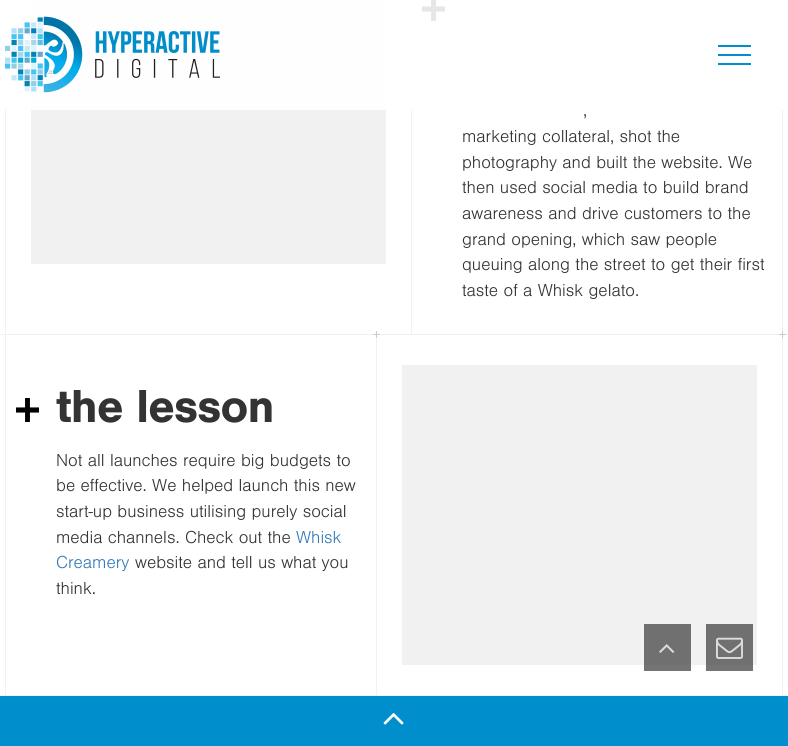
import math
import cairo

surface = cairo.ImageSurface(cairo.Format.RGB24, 788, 746)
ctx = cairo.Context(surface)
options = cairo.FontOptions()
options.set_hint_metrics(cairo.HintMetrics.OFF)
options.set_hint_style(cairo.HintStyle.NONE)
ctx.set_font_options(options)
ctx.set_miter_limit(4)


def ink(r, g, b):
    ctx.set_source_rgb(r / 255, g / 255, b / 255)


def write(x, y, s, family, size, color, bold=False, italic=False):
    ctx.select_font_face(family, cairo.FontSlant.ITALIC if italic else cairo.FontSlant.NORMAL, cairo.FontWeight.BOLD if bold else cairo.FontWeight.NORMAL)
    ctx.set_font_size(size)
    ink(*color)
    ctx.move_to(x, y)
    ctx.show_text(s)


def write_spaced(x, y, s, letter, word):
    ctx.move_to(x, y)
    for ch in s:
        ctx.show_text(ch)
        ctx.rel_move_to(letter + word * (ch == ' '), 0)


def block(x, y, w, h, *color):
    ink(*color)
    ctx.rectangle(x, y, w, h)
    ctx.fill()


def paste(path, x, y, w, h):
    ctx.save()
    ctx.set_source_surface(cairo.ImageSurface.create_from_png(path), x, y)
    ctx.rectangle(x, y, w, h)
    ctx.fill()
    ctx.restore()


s1 = dict(family="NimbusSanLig", size=18, color=(51, 51, 51))
s2 = dict(family="NimbusSanLig", size=18, color=(51, 122, 183))

ink(255, 255, 255)
ctx.paint()
block(706, 665, 47, 6, 116, 116, 116)
block(644, 665, 47, 6, 116, 116, 116)
block(5, 0, 1, 334, 241, 241, 241)
block(411, 0, 1, 334, 241, 241, 241)
block(31, 0, 355, 264, 241, 241, 241)
block(782, 0, 1, 334, 241, 241, 241)
paste("pic2.png", 422, 0, 23, 21)
ctx.set_source_rgba(1, 1, 1, 0.9)
ctx.rectangle(5, 0, 778, 110)
ctx.fill()
block(718, 45, 33, 2, 0, 142, 204)
block(718, 54, 33, 2, 0, 142, 204)
block(718, 63, 33, 2, 0, 142, 204)
paste("pic1.png", 5, 16, 215, 77)
block(0, 334, 788, 1, 241, 241, 241)
write(583, 116, ",", **s1)
write(462, 142, "marketing collateral, shot the", **s1)
write(462, 168, "photography and built the website. We", **s1)
write(462, 193, "then used social media to build brand", **s1)
write(462, 219, "awareness and drive customers to the", **s1)
write(462, 245, "grand opening, which saw people", **s1)
write(462, 270, "queuing along the street to get their first", **s1)
write(462, 296, "taste of a Whisk gelato.", **s1)
block(0, 695, 788, 1, 241, 241, 241)
block(5, 335, 1, 360, 241, 241, 241)
block(376, 335, 1, 360, 241, 241, 241)
paste("pic3.png", 373, 331, 7, 7)
paste("pic4.png", 16, 398, 23, 24)
ctx.select_font_face("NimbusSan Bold", cairo.FontSlant.NORMAL, cairo.FontWeight.BOLD)
ctx.set_font_size(48)
ink(51, 51, 51)
write_spaced(56, 422, "the lesson", -1, 0)
write(56, 466, "Not all launches require big budgets to", **s1)
write(56, 491, "be effective. We helped launch this new", **s1)
write(56, 517, "start-up business utilising purely social", **s1)
write(56, 543, "media channels. Check out the", **s1)
write(296, 543, "Whisk", **s2)
write(56, 568, "Creamery", **s2)
write(135, 568, "website and tell us what you", **s1)
write(56, 594, "think.", **s1)
block(782, 335, 1, 360, 241, 241, 241)
paste("pic3.png", 779, 331, 7, 7)
block(402, 365, 355, 300, 241, 241, 241)
block(706, 624, 47, 41, 112, 112, 112)
block(644, 624, 47, 41, 112, 112, 112)
block(0, 696, 788, 50, 0, 142, 204)
paste("pic5.png", 383, 713, 21, 12)
paste("pic6.png", 659, 644, 16, 9)
paste("pic7.png", 716, 637, 27, 22)
surface.write_to_png("screenshot.png")
